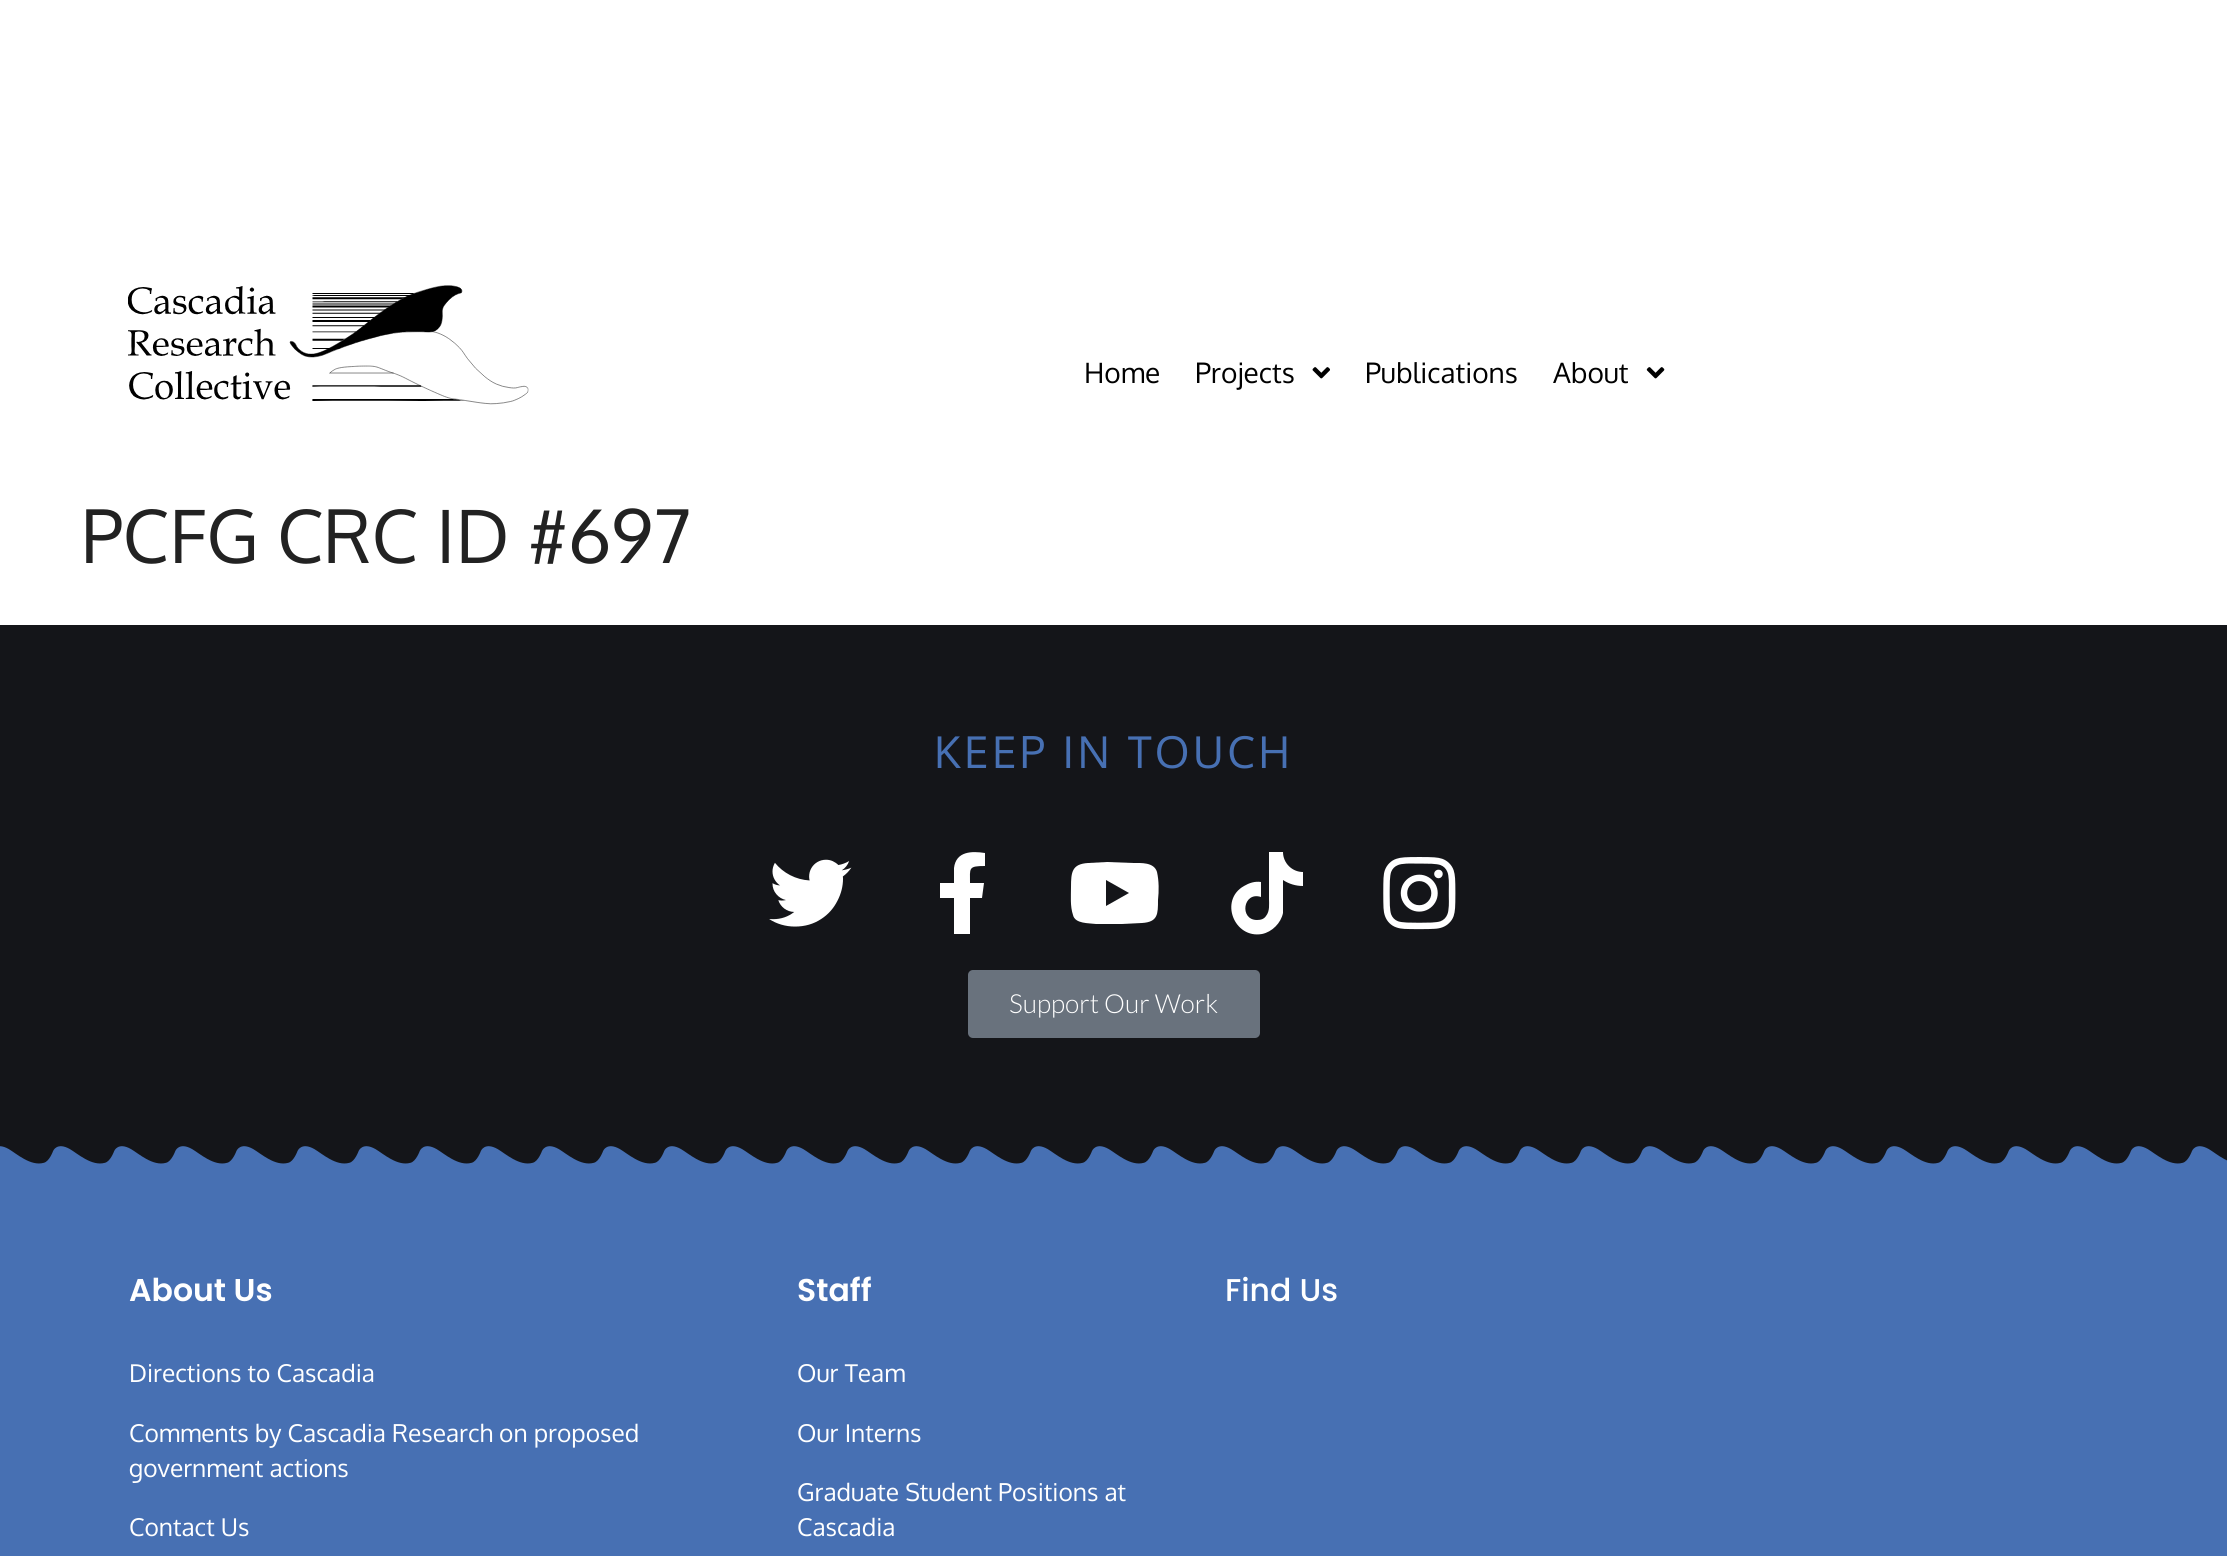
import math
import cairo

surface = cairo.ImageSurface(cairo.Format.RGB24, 2227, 1556)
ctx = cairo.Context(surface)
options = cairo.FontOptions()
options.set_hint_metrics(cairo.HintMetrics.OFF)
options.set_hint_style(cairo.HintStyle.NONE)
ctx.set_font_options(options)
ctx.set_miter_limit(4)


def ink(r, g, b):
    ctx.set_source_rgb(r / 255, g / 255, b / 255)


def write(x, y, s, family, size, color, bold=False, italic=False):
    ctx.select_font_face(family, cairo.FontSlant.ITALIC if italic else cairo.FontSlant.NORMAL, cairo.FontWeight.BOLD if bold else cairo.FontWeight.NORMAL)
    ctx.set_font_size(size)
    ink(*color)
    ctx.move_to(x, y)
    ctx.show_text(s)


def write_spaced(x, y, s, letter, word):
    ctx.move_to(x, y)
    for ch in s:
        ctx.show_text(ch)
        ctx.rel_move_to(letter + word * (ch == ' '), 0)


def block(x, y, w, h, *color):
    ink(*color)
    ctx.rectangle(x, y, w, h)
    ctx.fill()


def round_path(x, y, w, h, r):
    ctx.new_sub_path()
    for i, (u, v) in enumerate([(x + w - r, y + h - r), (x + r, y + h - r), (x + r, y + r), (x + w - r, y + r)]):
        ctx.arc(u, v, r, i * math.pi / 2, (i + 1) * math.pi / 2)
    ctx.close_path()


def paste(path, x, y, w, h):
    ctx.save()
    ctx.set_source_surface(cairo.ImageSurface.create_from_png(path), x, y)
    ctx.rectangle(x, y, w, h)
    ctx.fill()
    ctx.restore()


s1 = dict(family="Oxygen", size=28, color=(0, 0, 0))
s2 = dict(family="Oxygen", size=73.5, color=(34, 34, 34))
s3 = dict(family="Lato Light", size=26.25, color=(255, 255, 255))
s4 = dict(family="Poppins SemiBold", size=31.5, color=(255, 255, 255))
s5 = dict(family="Oxygen", size=24.5, color=(255, 255, 255))
s6 = dict(family="Poppins Medium", size=31.5, color=(255, 255, 255))

ink(255, 255, 255)
ctx.paint()
paste("pic1.png", 128, 285, 401, 120)
write(1084, 383, "Home", **s1)
write(1195, 383, "Projects", **s1)
paste("pic2.png", 1312, 367, 18, 12)
write(1365, 383, "Publications", **s1)
write(1553, 383, "About", **s1)
paste("pic3.png", 1646, 367, 19, 12)
write(81, 563, "PCFG CRC ID #697", **s2)
block(0, 625, 2227, 518, 20, 21, 25)
ctx.set_font_size(43.75)
ink(71, 112, 179)
write_spaced(934, 768, "KEEP IN TOUCH", 3.5, 0)
paste("pic4.png", 769, 859, 83, 68)
ink(255, 255, 255)
ctx.new_path()
ctx.move_to(982, 898)
ctx.line_to(970, 898)
ctx.line_to(970, 934)
ctx.line_to(954, 934)
ctx.line_to(954, 898)
ctx.line_to(940, 898)
ctx.line_to(940, 883)
ctx.line_to(954, 883)
ctx.line_to(954, 868)
ctx.curve_to(956, 851, 972, 851, 985, 853)
ctx.line_to(985, 866)
ctx.curve_to(968, 866, 970, 868, 970, 883)
ctx.line_to(984, 883)
ctx.close_path()
ctx.fill()
ctx.new_path()
ctx.move_to(1157, 872)
ctx.curve_to(1159, 881, 1159, 891, 1158, 900)
ctx.curve_to(1158, 914, 1158, 922, 1142, 923)
ctx.line_to(1122, 924)
ctx.line_to(1096, 924)
ctx.curve_to(1089, 923, 1075, 924, 1073, 915)
ctx.curve_to(1070, 906, 1071, 896, 1071, 887)
ctx.curve_to(1071, 872, 1072, 864, 1088, 863)
ctx.line_to(1107, 862)
ctx.line_to(1133, 863)
ctx.curve_to(1141, 863, 1154, 862, 1157, 872)
ctx.close_path()
ctx.move_to(1106, 906)
ctx.line_to(1129, 893)
ctx.line_to(1106, 880)
ctx.close_path()
ctx.fill()
ctx.new_path()
ctx.move_to(1303, 886)
ctx.curve_to(1296, 886, 1289, 884, 1283, 880)
ctx.line_to(1283, 913)
ctx.curve_to(1281, 923, 1272, 932, 1262, 934)
ctx.curve_to(1234, 939, 1219, 900, 1244, 886)
ctx.curve_to(1249, 883, 1255, 881, 1261, 882)
ctx.line_to(1261, 897)
ctx.curve_to(1243, 891, 1239, 920, 1257, 920)
ctx.curve_to(1261, 920, 1264, 919, 1266, 916)
ctx.curve_to(1270, 911, 1269, 904, 1269, 899)
ctx.line_to(1269, 852)
ctx.line_to(1283, 852)
ctx.curve_to(1283, 863, 1292, 872, 1303, 872)
ctx.close_path()
ctx.fill()
paste("pic5.png", 1383, 857, 73, 73)
ink(105, 114, 125)
round_path(968, 970, 292, 68, 5)
ctx.fill()
write(1009, 1013, "Support Our Work", **s3)
block(0, 1146, 2227, 410, 71, 112, 179)
paste("pic6.png", 0, 1143, 2227, 21)
write(129, 1301, "About Us", **s4)
write(129, 1382, "Directions to Cascadia", **s5)
write(129, 1442, "Comments by Cascadia Research on proposed", **s5)
write(129, 1477, "government actions", **s5)
write(129, 1536, "Contact Us", **s5)
write(797, 1301, "Staff", **s4)
write(797, 1382, "Our Team", **s5)
write(797, 1442, "Our Interns", **s5)
write(797, 1501, "Graduate Student Positions at", **s5)
write(797, 1536, "Cascadia", **s5)
write(1225, 1301, "Find Us", **s6)
surface.write_to_png("screenshot.png")
